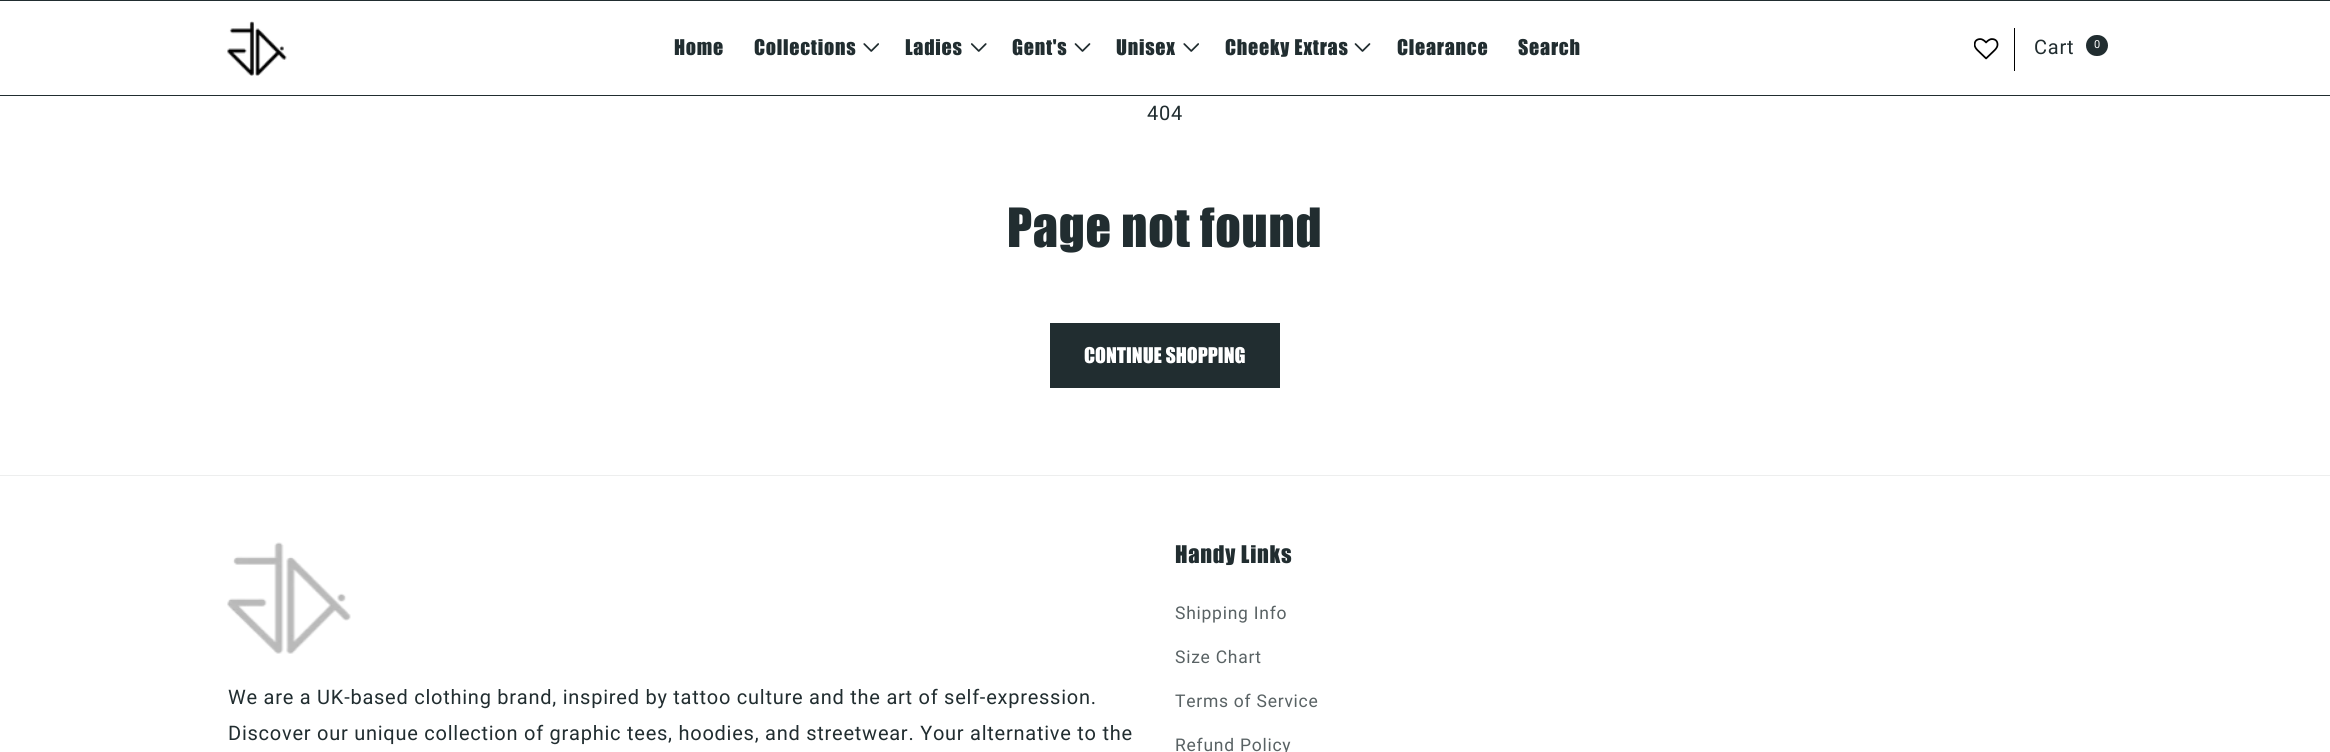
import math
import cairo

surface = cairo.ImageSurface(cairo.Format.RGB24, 2330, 752)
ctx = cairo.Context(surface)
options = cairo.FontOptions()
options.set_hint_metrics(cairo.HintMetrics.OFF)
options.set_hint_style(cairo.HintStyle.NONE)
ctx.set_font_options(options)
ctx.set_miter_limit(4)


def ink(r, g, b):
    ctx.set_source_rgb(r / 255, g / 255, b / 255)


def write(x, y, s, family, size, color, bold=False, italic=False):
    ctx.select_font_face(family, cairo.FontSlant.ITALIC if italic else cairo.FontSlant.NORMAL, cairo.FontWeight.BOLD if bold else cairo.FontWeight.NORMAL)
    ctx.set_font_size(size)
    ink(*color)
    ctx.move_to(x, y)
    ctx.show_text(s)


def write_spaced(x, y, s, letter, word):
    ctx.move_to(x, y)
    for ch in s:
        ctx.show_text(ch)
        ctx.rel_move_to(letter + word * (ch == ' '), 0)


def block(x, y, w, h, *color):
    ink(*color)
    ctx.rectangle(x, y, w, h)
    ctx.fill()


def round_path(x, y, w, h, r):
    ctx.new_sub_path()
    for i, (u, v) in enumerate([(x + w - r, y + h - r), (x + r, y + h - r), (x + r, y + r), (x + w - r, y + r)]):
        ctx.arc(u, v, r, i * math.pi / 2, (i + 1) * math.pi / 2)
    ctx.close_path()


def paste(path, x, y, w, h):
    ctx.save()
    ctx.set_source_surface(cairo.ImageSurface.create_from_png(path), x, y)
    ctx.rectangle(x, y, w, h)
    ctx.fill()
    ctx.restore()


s1 = dict(family="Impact", size=20, color=(255, 255, 255))

ink(255, 255, 255)
ctx.paint()
block(0, 0, 2330, 1, 33, 45, 48)
block(0, 95, 2330, 1, 33, 45, 48)
paste("pic1.png", 227, 21, 60, 55)
ctx.select_font_face("Impact")
ctx.set_font_size(20)
write_spaced(674, 55, "Home", 0.75, 0)
write_spaced(754, 55, "Collections", 0.75, 0)
paste("pic2.png", 863, 43, 16, 9)
write_spaced(905, 55, "Ladies", 0.75, 0)
paste("pic3.png", 971, 43, 16, 9)
write_spaced(1012, 55, "Gent's", 0.75, 0)
paste("pic4.png", 1074, 43, 17, 9)
write_spaced(1116, 55, "Unisex", 0.75, 0)
paste("pic2.png", 1183, 43, 16, 9)
write_spaced(1225, 55, "Cheeky Extras", 0.75, 0)
paste("pic4.png", 1354, 43, 17, 9)
write_spaced(1397, 55, "Clearance", 0.75, 0)
write_spaced(1518, 55, "Search", 0.75, 0)
paste("pic5.png", 1974, 38, 25, 22)
block(2014, 28, 1, 43, 0, 0, 0)
ctx.select_font_face("Roboto")
ink(33, 45, 48)
write_spaced(2034, 54, "Cart", 0.75, 0)
round_path(2086, 35, 22, 21, 10.5)
ctx.fill()
ctx.set_font_size(11)
ink(255, 255, 255)
write_spaced(2094, 48, "0", 0.75, 0)
ctx.set_font_size(20)
ink(33, 45, 48)
write_spaced(1147, 120, "404", 0.75, 0)
ctx.select_font_face("Impact")
ctx.set_font_size(50)
write_spaced(1007, 247, "Page not found", 0.75, 0)
block(1050, 323, 230, 65, 33, 45, 48)
write(1084, 363, "CONTINUE SHOPPING", **s1)
block(0, 475, 2330, 1, 237, 238, 238)
paste("pic6.png", 227, 542, 124, 112)
ctx.select_font_face("Roboto")
ink(33, 45, 48)
write_spaced(228, 704, "We are a UK-based clothing brand, inspired by tattoo culture and the art of self-expression.", 0.75, 0)
write_spaced(228, 740, "Discover our unique collection of graphic tees, hoodies, and streetwear. Your alternative to the", 0.75, 0)
ctx.select_font_face("Impact")
ctx.set_font_size(22.5)
write_spaced(1175, 563, "Handy Links", 0.75, 0)
ctx.select_font_face("Roboto")
ctx.set_font_size(17.5)
ink(89, 98, 100)
write_spaced(1175, 619, "Shipping Info", 0.75, 0)
write_spaced(1175, 663, "Size Chart", 0.75, 0)
write_spaced(1175, 707, "Terms of Service", 0.75, 0)
write_spaced(1175, 751, "Refund Policy", 0.75, 0)
surface.write_to_png("screenshot.png")
